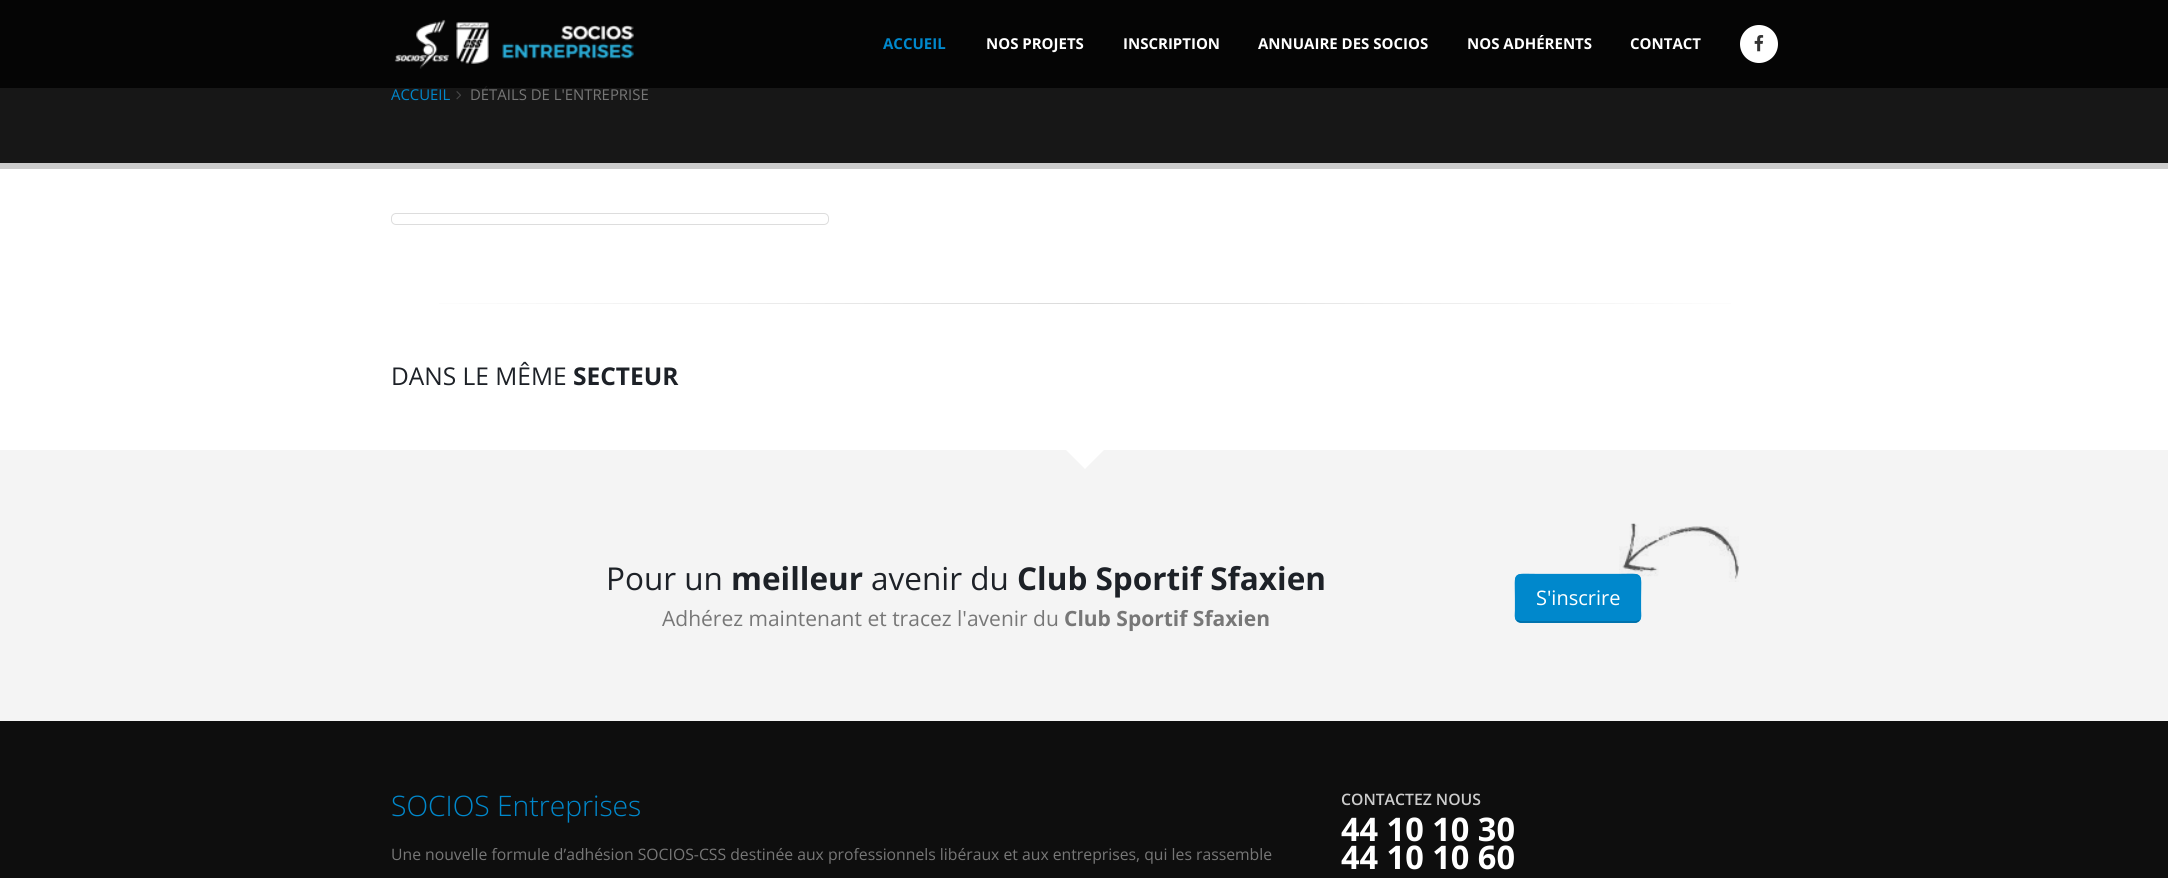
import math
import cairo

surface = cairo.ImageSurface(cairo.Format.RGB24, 2168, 878)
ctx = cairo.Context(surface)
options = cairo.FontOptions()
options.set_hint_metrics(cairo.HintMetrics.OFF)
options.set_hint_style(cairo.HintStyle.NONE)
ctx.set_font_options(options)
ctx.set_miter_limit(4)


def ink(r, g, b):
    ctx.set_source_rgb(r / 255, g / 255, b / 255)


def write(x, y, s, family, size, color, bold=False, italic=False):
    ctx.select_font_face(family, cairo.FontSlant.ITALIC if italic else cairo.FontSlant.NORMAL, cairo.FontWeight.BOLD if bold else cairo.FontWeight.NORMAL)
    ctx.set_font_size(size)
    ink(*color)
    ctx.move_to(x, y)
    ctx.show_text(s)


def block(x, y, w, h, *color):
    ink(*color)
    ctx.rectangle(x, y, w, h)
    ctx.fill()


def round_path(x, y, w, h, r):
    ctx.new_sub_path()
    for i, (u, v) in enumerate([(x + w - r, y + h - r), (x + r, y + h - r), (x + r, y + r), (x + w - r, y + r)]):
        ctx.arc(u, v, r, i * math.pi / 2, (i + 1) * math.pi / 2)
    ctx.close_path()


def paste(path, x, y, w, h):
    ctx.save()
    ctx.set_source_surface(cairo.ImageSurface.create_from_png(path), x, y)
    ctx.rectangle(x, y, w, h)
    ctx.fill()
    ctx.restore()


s1 = dict(family="Open Sans", size=14.9, color=(119, 119, 119))
s2 = dict(family="Open Sans", size=15, color=(0, 136, 204), bold=True)
s3 = dict(family="Open Sans", size=15, color=(255, 255, 255), bold=True)
s4 = dict(family="Open Sans", size=14.9, color=(0, 136, 204))
s5 = dict(family="Open Sans", size=24.5, color=(29, 33, 39))
s6 = dict(family="Open Sans", size=24.5, color=(29, 33, 39), bold=True)
s7 = dict(family="Open Sans", size=31.5, color=(29, 33, 39))
s8 = dict(family="Open Sans", size=31.5, color=(29, 33, 39), bold=True)
s9 = dict(family="Open Sans", size=21, color=(119, 119, 119))
s10 = dict(family="Open Sans", size=21, color=(119, 119, 119), bold=True)
s11 = dict(family="Open Sans", size=20, color=(255, 255, 255))
s12 = dict(family="Open Sans Light", size=28.25, color=(0, 136, 204))
s13 = dict(family="Open Sans", size=15.75, color=(119, 119, 119))
s14 = dict(family="Open Sans SemiBold", size=15.75, color=(204, 204, 204))
s15 = dict(family="Open Sans", size=32.5, color=(255, 255, 255), bold=True)

ink(255, 255, 255)
ctx.paint()
block(0, 0, 2168, 163, 23, 23, 23)
write(470, 100, "DÉTAILS DE L'ENTREPRISE", **s1)
ctx.set_source_rgba(0, 0, 0, 0.8)
ctx.rectangle(0, 0, 2168, 88)
ctx.fill()
paste("pic1.png", 394, 19, 240, 50)
write(883, 49, "ACCUEIL", **s2)
write(986, 49, "NOS PROJETS", **s3)
write(1123, 49, "INSCRIPTION", **s3)
write(1258, 49, "ANNUAIRE DES SOCIOS", **s3)
write(1467, 49, "NOS ADHÉRENTS", **s3)
write(1630, 49, "CONTACT", **s3)
ctx.new_path()
ctx.arc(1759, 44, 19, 0, 2 * math.pi)
ctx.fill()
paste("pic2.png", 1754, 35, 10, 17)
block(0, 163, 2168, 6, 204, 204, 204)
write(391, 100, "ACCUEIL", **s4)
paste("pic3.png", 456, 91, 5, 9)
round_path(391.5, 213.5, 437, 11, 4.5)
ink(221, 221, 221)
ctx.set_line_width(1)
ctx.stroke()
gradient = cairo.LinearGradient(391, 303, 1779, 303)
gradient.add_color_stop_rgba(0, 1, 1, 1, 1)
gradient.add_color_stop_rgba(0.5, 0.859, 0.859, 0.859, 1)
gradient.add_color_stop_rgba(1, 1, 1, 1, 1)
ctx.set_source(gradient)
ctx.rectangle(439, 303, 1292, 1)
ctx.fill()
write(391, 385, "DANS LE MÊME", **s5)
write(573, 385, "SECTEUR", **s6)
block(0, 450, 2168, 271, 244, 244, 244)
ink(255, 255, 255)
ctx.new_path()
ctx.move_to(1060, 444)
ctx.line_to(1110, 444)
ctx.line_to(1085, 469)
ctx.close_path()
ctx.fill()
write(606, 590, "Pour un", **s7)
write(731, 590, "meilleur", **s8)
write(871, 590, "avenir du", **s7)
write(1017, 590, "Club Sportif Sfaxien", **s8)
write(662, 626, "Adhérez maintenant et tracez l'avenir du", **s9)
write(1064, 626, "Club Sportif Sfaxien", **s10)
ink(0, 136, 204)
round_path(1515, 574, 126, 49, 6)
ctx.fill()
ctx.new_path()
ctx.move_to(1639, 620.5)
ctx.line_to(1636, 622)
ctx.line_to(1520.5, 622)
ctx.line_to(1517, 620.5)
ink(0, 102, 153)
ctx.set_line_width(1.2)
ctx.stroke()
ctx.new_path()
ctx.move_to(1517, 620.5)
ctx.curve_to(1514.5, 618, 1515.5, 613.5, 1515.5, 610.5)
ctx.line_to(1515.5, 598)
ctx.curve_to(1515.5, 570.5, 1511.5, 574.5, 1540, 574.5)
ctx.line_to(1616, 574.5)
ctx.curve_to(1644.5, 574.5, 1640.5, 570.5, 1640.5, 598)
ctx.line_to(1640.5, 610.5)
ctx.curve_to(1640.5, 613.5, 1641.5, 618, 1639, 620.5)
ink(0, 136, 204)
ctx.stroke()
paste("pic4.png", 1619, 523, 120, 59)
write(1536, 605, "S'inscrire", **s11)
block(0, 721, 2168, 157, 14, 14, 14)
write(391, 816, "SOCIOS Entreprises", **s12)
write(391, 860, "Une nouvelle formule d’adhésion SOCIOS-CSS destinée aux professionnels libéraux et aux entreprises, qui les rassemble", **s13)
write(1341, 805, "CONTACTEZ NOUS", **s14)
write(1341, 841, "44 10 10 30", **s15)
write(1341, 869, "44 10 10 60", **s15)
surface.write_to_png("screenshot.png")
